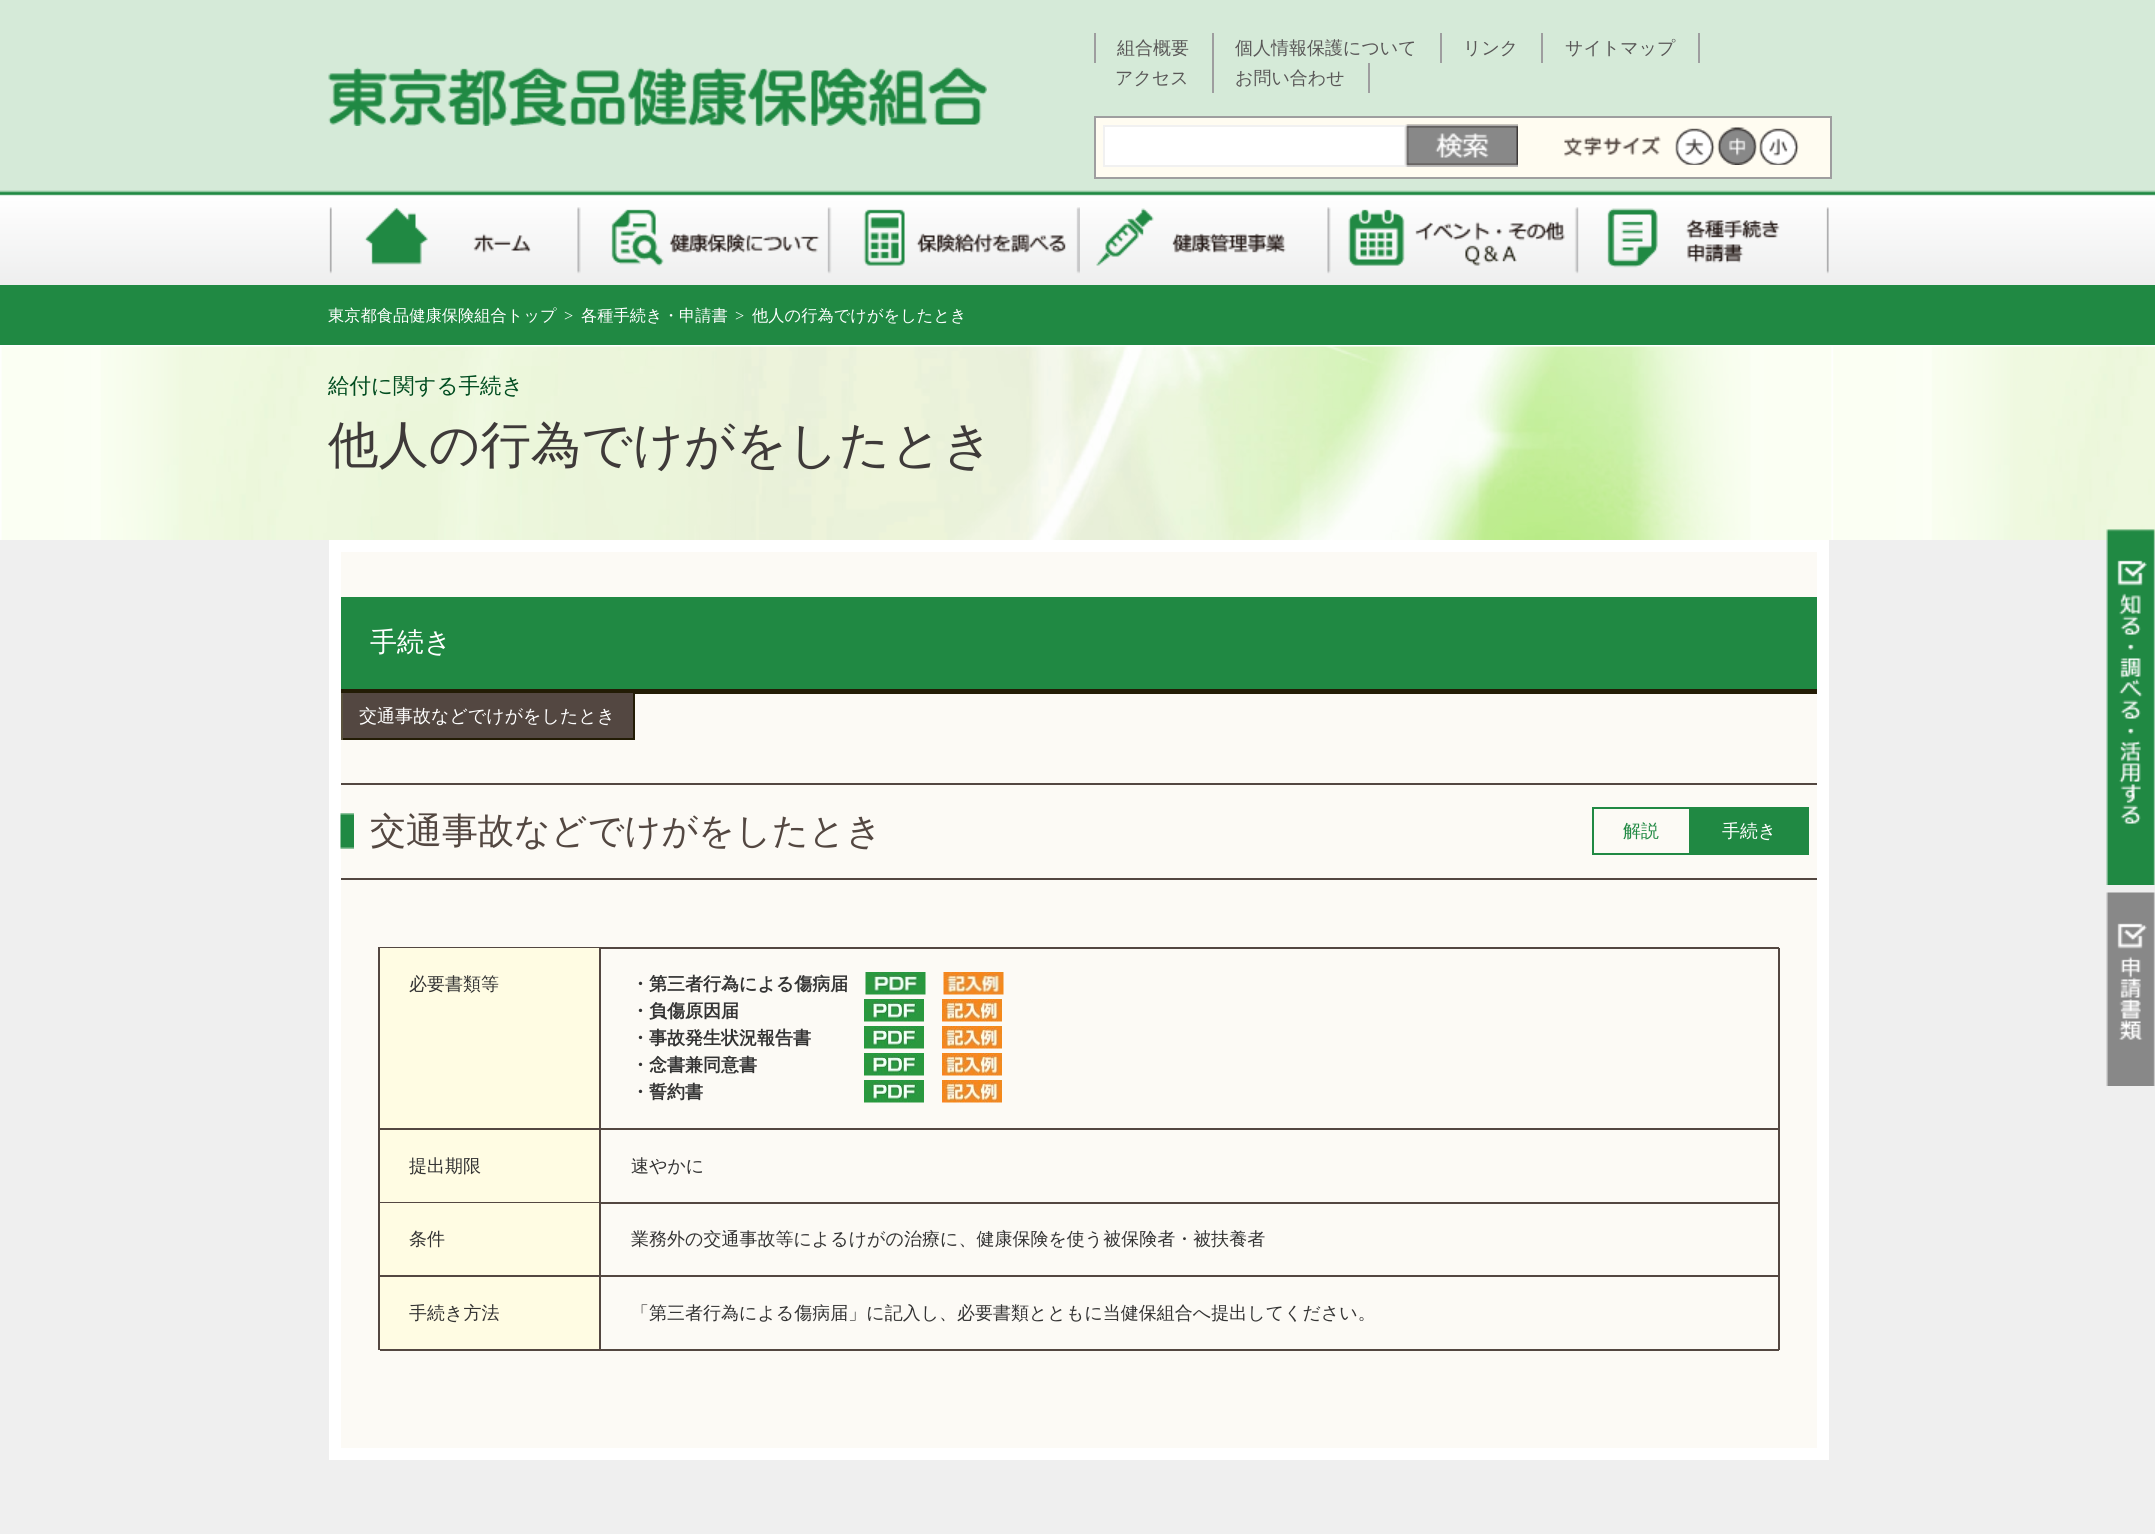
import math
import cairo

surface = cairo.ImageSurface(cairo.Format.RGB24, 2155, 1534)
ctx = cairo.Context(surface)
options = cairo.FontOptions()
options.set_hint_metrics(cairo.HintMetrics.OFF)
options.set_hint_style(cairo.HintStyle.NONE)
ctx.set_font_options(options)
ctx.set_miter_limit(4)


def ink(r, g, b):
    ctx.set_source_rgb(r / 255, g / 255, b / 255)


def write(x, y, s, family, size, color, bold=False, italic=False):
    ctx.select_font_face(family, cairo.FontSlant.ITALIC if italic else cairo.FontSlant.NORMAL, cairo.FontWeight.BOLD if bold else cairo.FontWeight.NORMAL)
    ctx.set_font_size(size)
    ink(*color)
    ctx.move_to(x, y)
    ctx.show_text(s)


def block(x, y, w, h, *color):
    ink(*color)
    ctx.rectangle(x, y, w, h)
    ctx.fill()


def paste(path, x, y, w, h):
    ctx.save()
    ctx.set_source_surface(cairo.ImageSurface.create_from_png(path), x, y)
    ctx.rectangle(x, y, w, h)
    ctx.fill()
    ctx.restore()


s1 = dict(family="WenQuanYi Zen Hei Medium", size=18, color=(89, 87, 87))
s2 = dict(family="WenQuanYi Zen Hei Medium", size=16.25, color=(255, 255, 255))
s3 = dict(family="Liberation Serif", size=16.25, color=(255, 255, 255))
s4 = dict(family="WenQuanYi Zen Hei Medium", size=21.5, color=(0, 76, 31))
s5 = dict(family="WenQuanYi Zen Hei Medium", size=50.4, color=(62, 58, 57))
s6 = dict(family="WenQuanYi Zen Hei Medium", size=27, color=(255, 255, 255))
s7 = dict(family="WenQuanYi Zen Hei Medium", size=18, color=(255, 255, 255))
s8 = dict(family="WenQuanYi Zen Hei Medium", size=36, color=(83, 71, 65))
s9 = dict(family="WenQuanYi Zen Hei Medium", size=18, color=(32, 137, 67))
s10 = dict(family="WenQuanYi Zen Hei Medium", size=18, color=(51, 51, 51))
s11 = dict(family="WenQuanYi Zen Hei", size=18, color=(51, 51, 51), bold=True)

ink(255, 255, 255)
ctx.paint()
paste("pic1.png", 0, 0, 2155, 285)
paste("pic2.png", 328, 67, 659, 59)
block(1212, 33, 2, 60, 158, 158, 159)
block(1094, 33, 2, 30, 158, 158, 159)
write(1117, 54, "組合概要", **s1)
block(1440, 33, 2, 30, 158, 158, 159)
write(1235, 54, "個人情報保護について", **s1)
block(1541, 33, 2, 30, 158, 158, 159)
write(1463, 54, "リンク", **s1)
block(1698, 33, 2, 30, 158, 158, 159)
write(1565, 54, "サイトマップ", **s1)
write(1115, 84, "アクセス", **s1)
block(1368, 63, 2, 30, 158, 158, 159)
write(1235, 84, "お問い合わせ", **s1)
ink(255, 252, 241)
ctx.rectangle(1095, 117, 736, 61)
ctx.fill_preserve()
ink(158, 158, 159)
ctx.stroke()
ink(255, 255, 255)
ctx.rectangle(1104, 126, 301, 40)
ctx.fill_preserve()
ink(241, 241, 241)
ctx.stroke()
block(1406, 125, 112, 42, 239, 239, 239)
paste("pic3.png", 1405, 124, 113, 43)
paste("pic4.png", 1564, 136, 97, 21)
paste("pic5.png", 1675, 128, 40, 37)
paste("pic6.png", 1717, 127, 40, 38)
paste("pic7.png", 1759, 128, 40, 37)
paste("pic8.png", 329, 207, 202, 67)
paste("pic9.png", 577, 207, 253, 67)
paste("pic10.png", 829, 207, 251, 67)
paste("pic11.png", 1096, 207, 235, 67)
paste("pic12.png", 1348, 207, 231, 67)
paste("pic13.png", 1607, 207, 222, 67)
block(0, 540, 2155, 994, 239, 239, 239)
block(0, 285, 2155, 60, 32, 137, 67)
write(328, 321, "東京都食品健康保険組合トップ", **s2)
write(564, 321, ">", **s3)
write(581, 321, "各種手続き・申請書", **s2)
write(735, 321, ">", **s3)
write(752, 321, "他人の行為でけがをしたとき", **s2)
paste("pic14.png", 0, 345, 2155, 195)
write(328, 393, "給付に関する手続き", **s4)
write(328, 462, "他人の行為でけがをしたとき", **s5)
block(329, 540, 1500, 920, 255, 255, 255)
block(341, 552, 1476, 896, 252, 250, 245)
block(341, 597, 1476, 92, 32, 137, 67)
block(341, 689, 1476, 5, 35, 28, 5)
write(370, 651, "手続き", **s6)
block(343, 693, 290, 45, 83, 71, 65)
block(633, 693, 2, 47, 35, 28, 5)
block(341, 738, 294, 2, 35, 28, 5)
block(341, 693, 2, 47, 91, 83, 62)
write(359, 722, "交通事故などでけがをしたとき", **s7)
paste("pic15.png", 340, 813, 14, 36)
block(341, 783, 1476, 2, 83, 71, 65)
block(341, 878, 1476, 2, 83, 71, 65)
write(370, 843, "交通事故などでけがをしたとき", **s8)
ctx.rectangle(1593, 808, 97, 46)
ink(32, 137, 67)
ctx.stroke()
write(1623, 837, "解説", **s9)
block(1691, 807, 118, 48, 32, 137, 67)
write(1722, 837, "手続き", **s7)
block(378, 947, 1401, 2, 83, 71, 65)
block(378, 947, 2, 403, 83, 71, 65)
block(380, 948, 219, 180, 255, 252, 227)
block(599, 948, 2, 255, 83, 71, 65)
block(380, 1128, 220, 2, 83, 71, 65)
write(409, 990, "必要書類等", **s10)
block(1778, 948, 2, 255, 83, 71, 65)
block(600, 1128, 1179, 2, 83, 71, 65)
write(631, 990, "・第三者行為による傷病届", **s11)
paste("pic16.png", 865, 972, 61, 23)
paste("pic17.png", 943, 972, 61, 23)
write(631, 1017, "・負傷原因届", **s11)
paste("pic18.png", 864, 999, 60, 23)
paste("pic19.png", 942, 999, 60, 23)
write(631, 1044, "・事故発生状況報告書", **s11)
paste("pic18.png", 864, 1026, 60, 23)
paste("pic19.png", 942, 1026, 60, 23)
write(631, 1071, "・念書兼同意書", **s11)
paste("pic18.png", 864, 1053, 60, 23)
paste("pic19.png", 942, 1053, 60, 23)
write(631, 1098, "・誓約書", **s11)
paste("pic18.png", 864, 1080, 60, 23)
paste("pic19.png", 942, 1080, 60, 23)
block(380, 1130, 219, 72, 255, 252, 227)
block(380, 1202, 220, 1, 83, 71, 65)
write(409, 1172, "提出期限", **s10)
block(600, 1202, 1179, 2, 83, 71, 65)
write(631, 1172, "速やかに", **s10)
block(380, 1203, 219, 72, 255, 252, 227)
block(599, 1203, 2, 147, 83, 71, 65)
block(380, 1275, 220, 2, 83, 71, 65)
write(409, 1245, "条件", **s10)
block(1778, 1203, 2, 147, 83, 71, 65)
block(600, 1275, 1179, 2, 83, 71, 65)
write(631, 1245, "業務外の交通事故等によるけがの治療に、健康保険を使う被保険者・被扶養者", **s10)
block(380, 1277, 219, 72, 255, 252, 227)
block(380, 1349, 1399, 2, 83, 71, 65)
write(409, 1319, "手続き方法", **s10)
write(631, 1319, "「第三者行為による傷病届」に記入し、必要書類とともに当健保組合へ提出してください。", **s10)
paste("pic20.png", 2106, 529, 49, 356)
paste("pic21.png", 2106, 892, 49, 194)
surface.write_to_png("screenshot.png")
